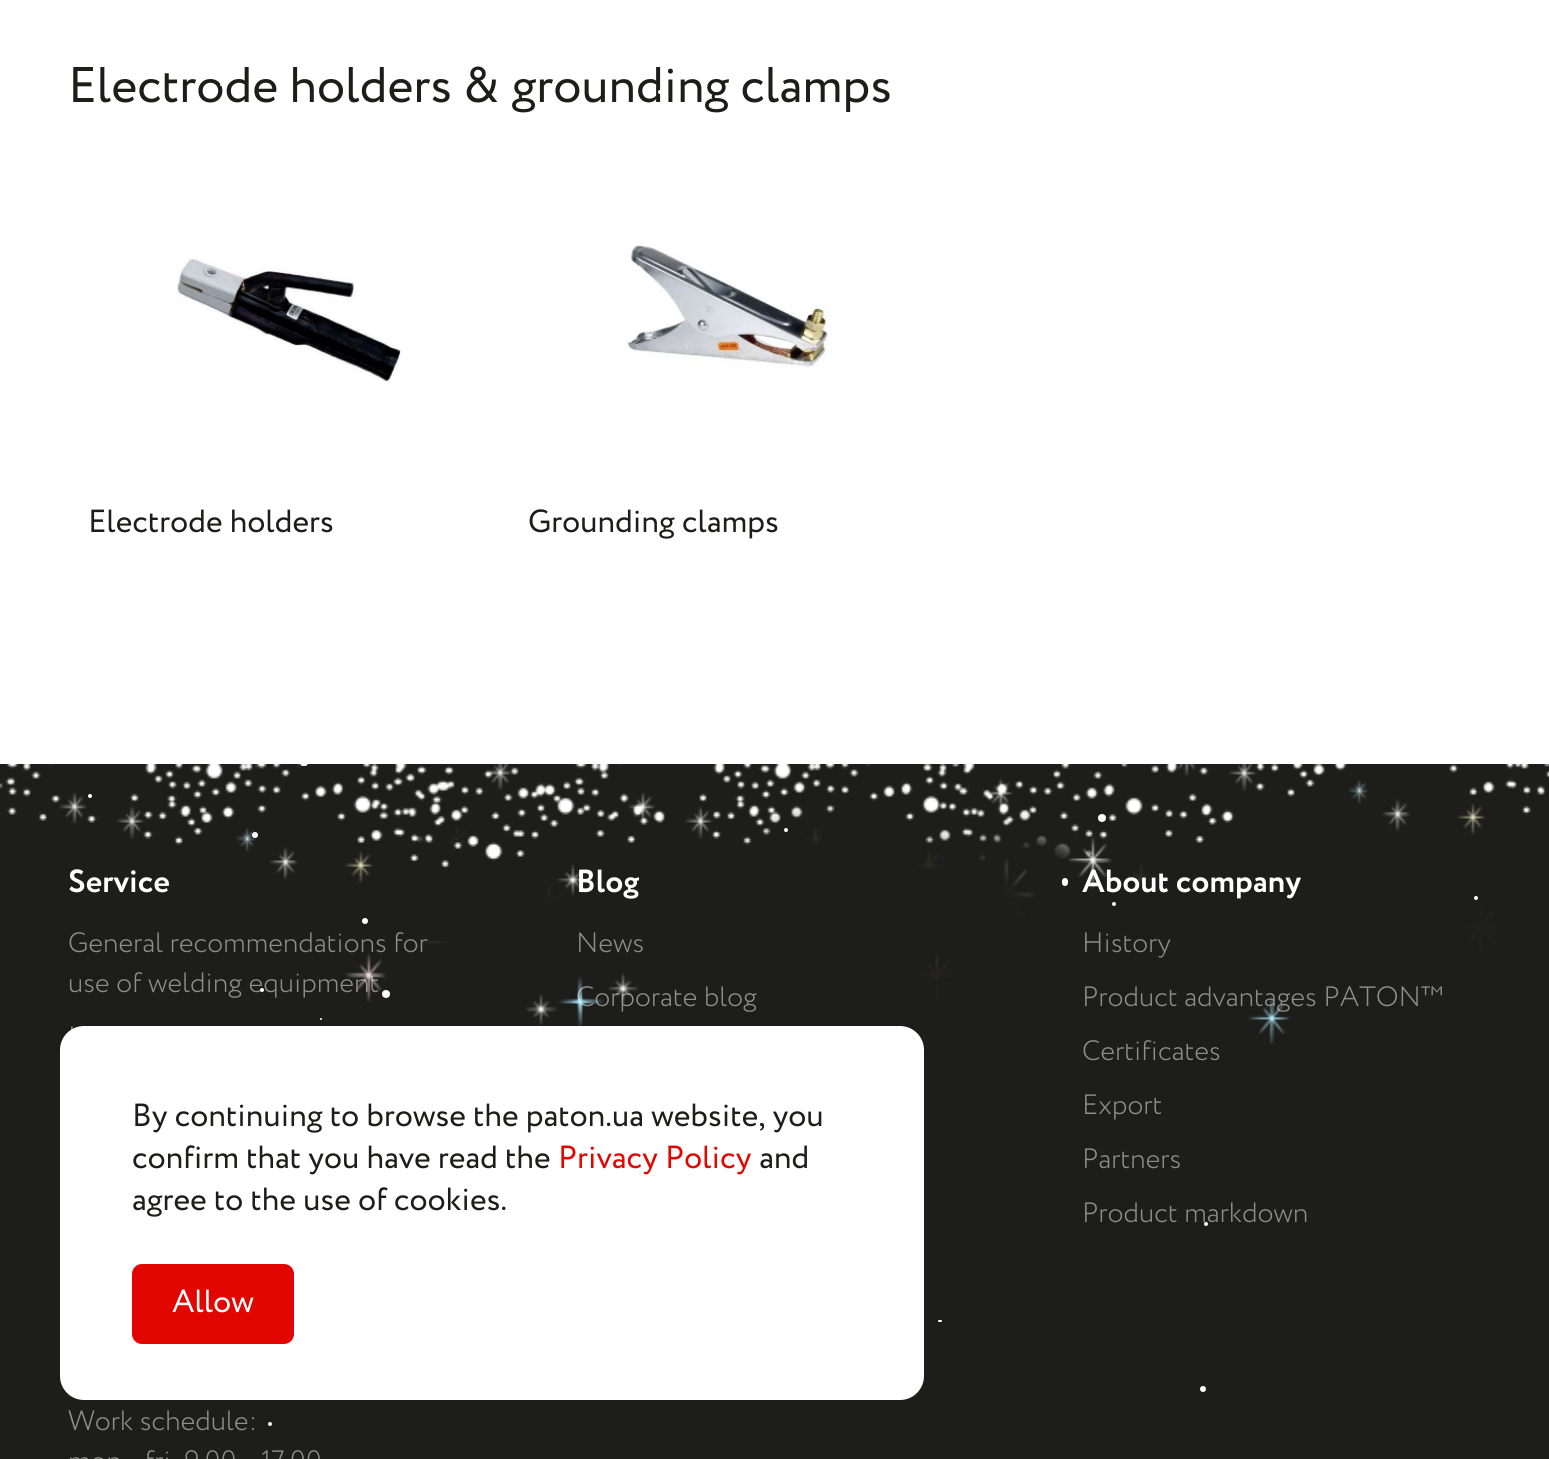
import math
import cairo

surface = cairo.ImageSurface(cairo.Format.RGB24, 1549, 1459)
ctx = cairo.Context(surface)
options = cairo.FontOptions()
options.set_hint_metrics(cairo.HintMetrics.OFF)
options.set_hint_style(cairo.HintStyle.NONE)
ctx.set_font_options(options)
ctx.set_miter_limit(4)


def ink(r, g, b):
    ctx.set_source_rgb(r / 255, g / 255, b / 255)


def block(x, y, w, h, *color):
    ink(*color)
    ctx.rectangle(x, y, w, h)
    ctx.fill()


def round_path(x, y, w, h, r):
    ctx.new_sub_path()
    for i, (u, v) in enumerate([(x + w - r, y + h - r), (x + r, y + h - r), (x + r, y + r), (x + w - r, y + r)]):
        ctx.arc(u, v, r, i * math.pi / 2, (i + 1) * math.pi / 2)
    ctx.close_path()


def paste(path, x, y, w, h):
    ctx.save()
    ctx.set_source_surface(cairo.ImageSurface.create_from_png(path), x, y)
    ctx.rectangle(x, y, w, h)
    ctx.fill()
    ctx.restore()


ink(255, 255, 255)
ctx.paint()
paste("pic1.png", 73, 66, 817, 47)
paste("pic2.png", 175, 258, 226, 124)
paste("pic3.png", 91, 509, 242, 24)
paste("pic4.png", 627, 245, 202, 123)
paste("pic5.png", 529, 509, 249, 30)
ink(255, 255, 255)
ctx.arc(221, 85, 1, 0, 2 * math.pi)
ctx.fill()
ctx.arc(660, 92, 2, 0, 2 * math.pi)
ctx.fill()
block(0, 764, 1549, 695, 29, 29, 27)
paste("pic6.png", 0, 764, 1549, 281)
ink(255, 255, 255)
round_path(300, 760, 8, 6, 3)
ctx.fill()
paste("pic7.png", 69, 869, 100, 24)
paste("pic8.png", 69, 932, 359, 21)
paste("pic9.png", 69, 972, 309, 26)
paste("pic10.png", 71, 1026, 2, 4)
paste("pic11.png", 579, 869, 61, 30)
paste("pic12.png", 579, 932, 64, 21)
paste("pic13.png", 577, 986, 180, 26)
paste("pic14.png", 1082, 869, 219, 30)
paste("pic15.png", 1085, 932, 86, 26)
paste("pic16.png", 1085, 986, 357, 26)
paste("pic17.png", 1083, 1040, 137, 21)
paste("pic18.png", 1085, 1094, 77, 26)
paste("pic19.png", 1085, 1148, 95, 21)
paste("pic20.png", 1085, 1202, 222, 21)
paste("pic21.png", 68, 1410, 187, 21)
paste("pic22.png", 70, 1450, 98, 9)
paste("pic23.png", 185, 1450, 135, 9)
ctx.arc(90, 796, 2, 0, 2 * math.pi)
ctx.fill()
ctx.arc(1102, 818, 4, 0, 2 * math.pi)
ctx.fill()
ctx.arc(786, 830, 2, 0, 2 * math.pi)
ctx.fill()
ctx.arc(255, 835, 3, 0, 2 * math.pi)
ctx.fill()
round_path(1062, 878, 6, 8, 3)
ctx.fill()
ctx.arc(1476, 898, 2, 0, 2 * math.pi)
ctx.fill()
ctx.arc(1114, 904, 2, 0, 2 * math.pi)
ctx.fill()
ctx.arc(365, 921, 3, 0, 2 * math.pi)
ctx.fill()
ctx.arc(262, 990, 2, 0, 2 * math.pi)
ctx.fill()
ctx.arc(386, 994, 4, 0, 2 * math.pi)
ctx.fill()
ctx.arc(321, 1019, 1, 0, 2 * math.pi)
ctx.fill()
round_path(60, 1026, 864, 374, 24)
ctx.fill()
paste("pic24.png", 135, 1103, 687, 30)
paste("pic25.png", 133, 1145, 417, 30)
paste("pic26.png", 561, 1145, 190, 30)
paste("pic27.png", 760, 1145, 47, 24)
paste("pic28.png", 133, 1187, 373, 30)
ink(225, 6, 0)
round_path(132, 1264, 162, 80, 10)
ctx.fill()
paste("pic29.png", 172, 1289, 82, 24)
ink(255, 255, 255)
ctx.arc(1206, 1224, 2, 0, 2 * math.pi)
ctx.fill()
round_path(938, 1320, 4, 2, 1)
ctx.fill()
ctx.arc(1203, 1389, 3, 0, 2 * math.pi)
ctx.fill()
ctx.arc(270, 1424, 2, 0, 2 * math.pi)
ctx.fill()
surface.write_to_png("screenshot.png")
